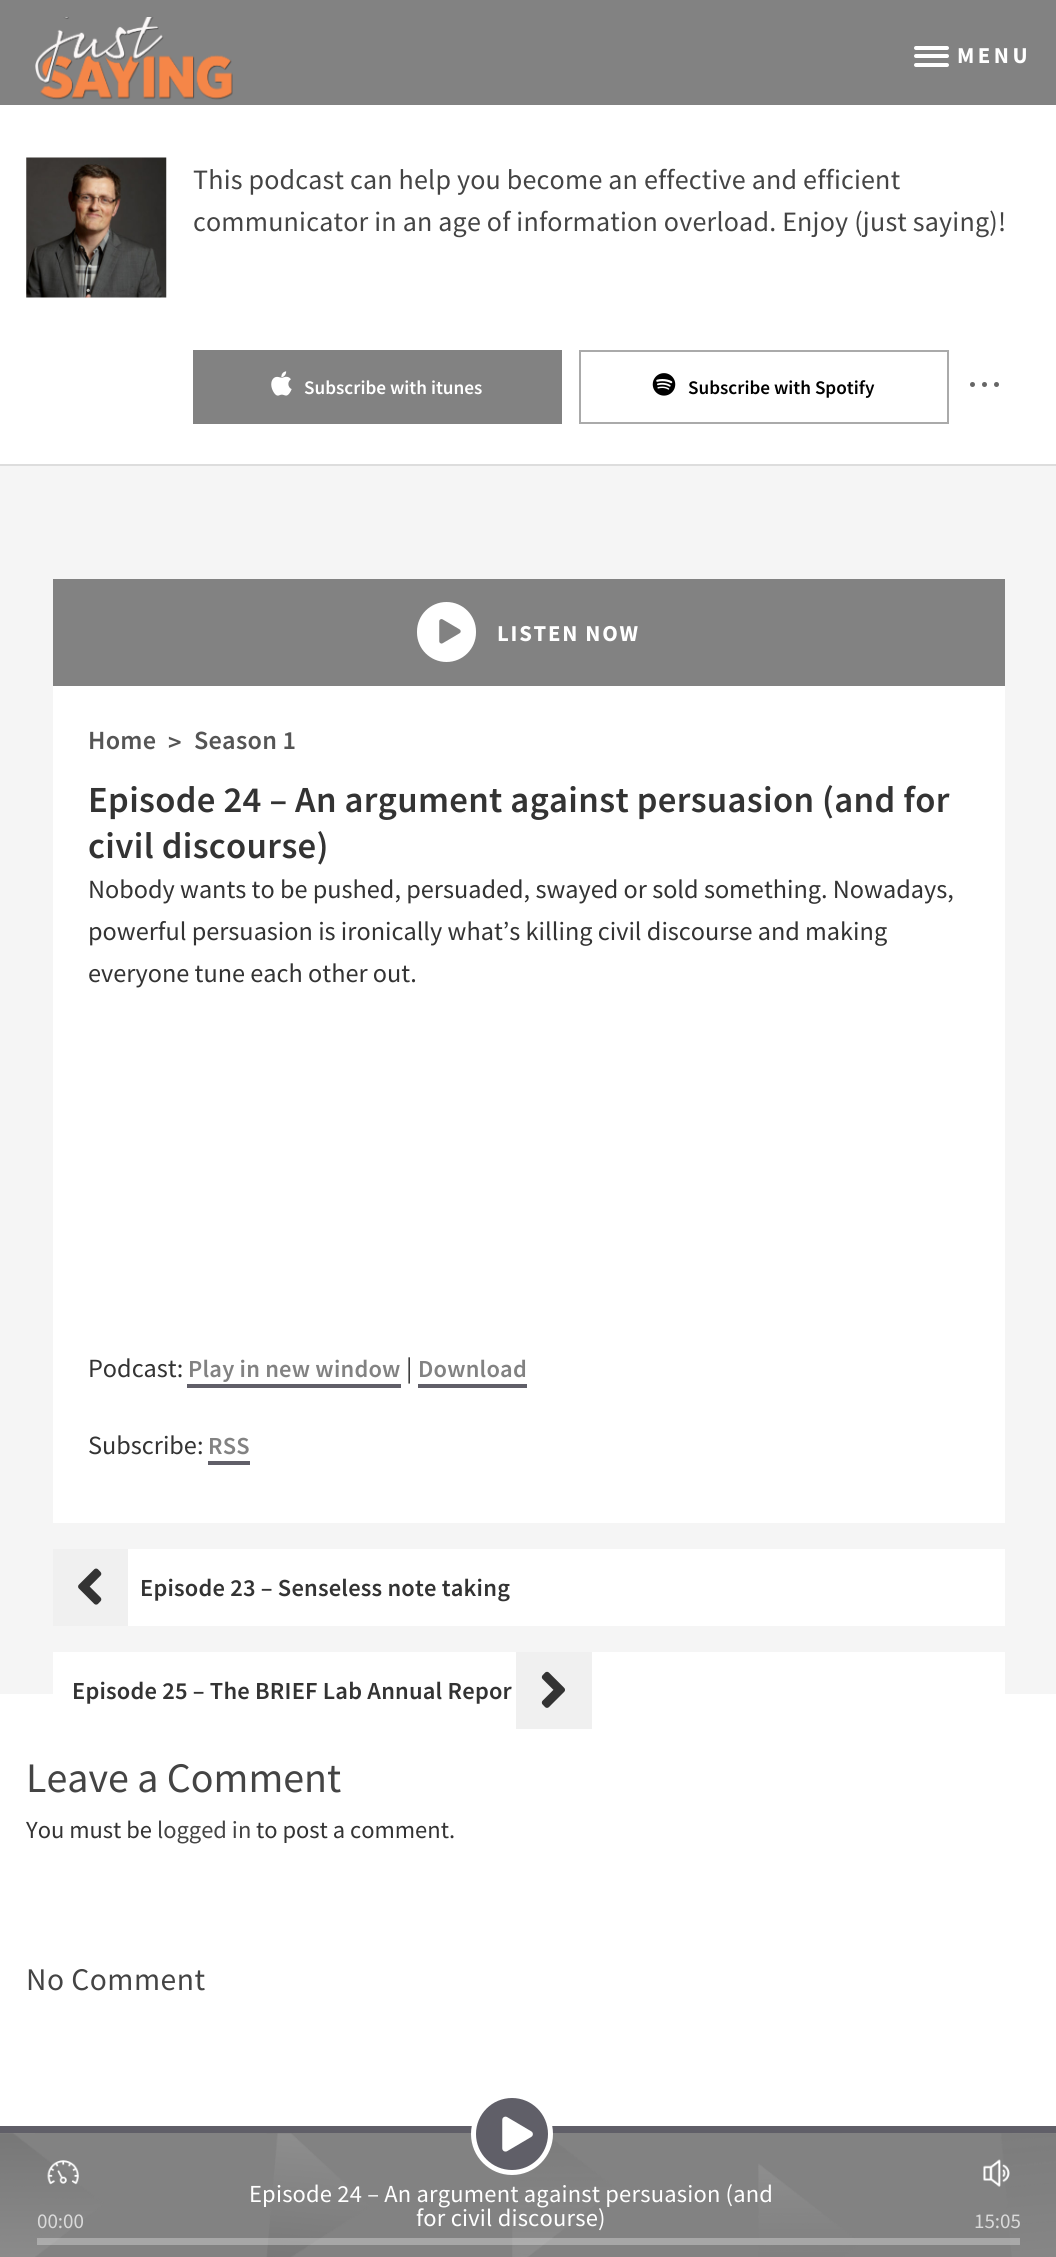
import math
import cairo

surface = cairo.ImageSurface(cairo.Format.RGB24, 1056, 2257)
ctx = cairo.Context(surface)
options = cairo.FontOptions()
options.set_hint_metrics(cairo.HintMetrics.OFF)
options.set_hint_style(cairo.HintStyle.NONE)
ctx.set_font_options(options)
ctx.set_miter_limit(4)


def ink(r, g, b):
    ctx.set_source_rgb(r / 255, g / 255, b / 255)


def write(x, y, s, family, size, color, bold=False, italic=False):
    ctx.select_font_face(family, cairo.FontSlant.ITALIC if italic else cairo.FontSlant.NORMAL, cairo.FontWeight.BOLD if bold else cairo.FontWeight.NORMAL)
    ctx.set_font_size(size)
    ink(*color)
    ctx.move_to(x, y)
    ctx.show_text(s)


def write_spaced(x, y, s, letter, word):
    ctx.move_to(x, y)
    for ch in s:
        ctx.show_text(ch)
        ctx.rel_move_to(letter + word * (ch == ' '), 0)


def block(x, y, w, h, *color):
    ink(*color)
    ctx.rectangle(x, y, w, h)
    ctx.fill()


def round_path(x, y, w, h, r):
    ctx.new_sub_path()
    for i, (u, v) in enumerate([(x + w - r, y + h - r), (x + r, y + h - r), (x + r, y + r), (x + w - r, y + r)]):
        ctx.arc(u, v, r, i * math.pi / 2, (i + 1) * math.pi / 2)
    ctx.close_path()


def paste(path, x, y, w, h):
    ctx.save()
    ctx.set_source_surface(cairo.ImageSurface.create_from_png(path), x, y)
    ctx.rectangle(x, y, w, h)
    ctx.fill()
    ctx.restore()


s1 = dict(family="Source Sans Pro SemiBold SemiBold", size=19.25, color=(255, 255, 255))
s2 = dict(family="Source Sans Pro SemiBold SemiBold", size=19.25, color=(0, 0, 0))
s3 = dict(family="Source Sans Pro", size=26.25, color=(51, 51, 51))
s4 = dict(family="Source Sans Pro", size=42, color=(68, 68, 68))
s5 = dict(family="Source Sans Pro", size=24.5, color=(51, 51, 51))
s6 = dict(family="Source Sans Pro", size=24.5, color=(68, 68, 68))
s7 = dict(family="Source Sans Pro", size=21, color=(218, 218, 218))

ink(255, 255, 255)
ctx.paint()
block(0, 0, 1056, 105, 130, 130, 130)
paste("pic1.png", 35, 17, 198, 83)
ink(255, 255, 255)
round_path(914, 46, 35, 4, 2)
ctx.fill()
round_path(914, 54, 35, 4, 2)
ctx.fill()
round_path(914, 63, 35, 4, 2)
ctx.fill()
ctx.select_font_face("Source Sans Pro", cairo.FontSlant.NORMAL, cairo.FontWeight.BOLD)
ctx.set_font_size(22.75)
write_spaced(957, 63, "MENU", 3.5, 0)
block(0, 464, 1056, 2, 221, 221, 221)
paste("pic2.png", 26, 157, 141, 141)
ctx.select_font_face("Source Sans Pro")
ctx.set_font_size(28)
ink(68, 68, 68)
write_spaced(193, 189, "This podcast can help you become an effective and efficient", 0.2, 0)
write_spaced(193, 231, "communicator in an age of information overload. Enjoy (just saying)!", 0.2, 0)
block(193, 350, 369, 74, 130, 130, 130)
paste("pic3.png", 271, 371, 21, 25)
write(304, 394, "Subscribe with itunes", **s1)
ctx.rectangle(580, 351, 368, 72)
ink(170, 170, 170)
ctx.stroke()
paste("pic4.png", 652, 373, 24, 23)
write(688, 394, "Subscribe with Spotify", **s2)
ink(102, 102, 102)
ctx.new_path()
ctx.arc(972.5, 384.5, 2.5, 0, 2 * math.pi)
ctx.fill()
ctx.arc(984.5, 384.5, 2.5, 0, 2 * math.pi)
ctx.fill()
ctx.arc(996.5, 384.5, 2.5, 0, 2 * math.pi)
ctx.fill()
block(0, 466, 1056, 1228, 245, 245, 245)
block(53, 579, 952, 107, 130, 130, 130)
ink(255, 255, 255)
round_path(417, 602, 59, 60, 29.5)
ctx.fill()
paste("pic5.png", 439, 619, 22, 25)
ctx.select_font_face("Source Sans Pro", cairo.FontSlant.NORMAL, cairo.FontWeight.BOLD)
ctx.set_font_size(22.75)
write_spaced(497, 641, "LISTEN NOW", 1.75, 0)
block(53, 686, 952, 837, 255, 255, 255)
ctx.select_font_face("Source Sans Pro SemiBold SemiBold")
ctx.set_font_size(26.25)
ink(85, 85, 85)
write_spaced(88, 749, "Home", 0.25, 0)
write_spaced(168, 751, ">", 0.25, 0)
write_spaced(194, 749, "Season 1", 0.25, 0)
ctx.set_font_size(36.75)
ink(51, 51, 51)
write_spaced(88, 812, "Episode 24 – An argument against persuasion (and for", 0.32, 0)
write_spaced(88, 858, "civil discourse)", 0.32, 0)
write(88, 898, "Nobody wants to be pushed, persuaded, swayed or sold something. Nowadays,", **s3)
write(88, 940, "powerful persuasion is ironically what’s killing civil discourse and making", **s3)
write(88, 982, "everyone tune each other out.", **s3)
write(88, 1377, "Podcast:", **s3)
ctx.select_font_face("Source Sans Pro SemiBold SemiBold")
ctx.set_font_size(24.5)
ink(130, 130, 130)
write_spaced(188, 1377, "Play in new window", 0.2, 0)
block(187, 1384, 214, 4, 96, 95, 104)
write(406, 1377, "|", **s3)
ctx.select_font_face("Source Sans Pro SemiBold SemiBold")
ctx.set_font_size(24.5)
ink(130, 130, 130)
write_spaced(418, 1377, "Download", 0.2, 0)
block(418, 1384, 109, 4, 96, 95, 104)
write(88, 1454, "Subscribe:", **s3)
ctx.select_font_face("Source Sans Pro SemiBold SemiBold")
ctx.set_font_size(24.5)
ink(130, 130, 130)
write_spaced(208, 1454, "RSS", 0.2, 0)
block(208, 1461, 42, 4, 96, 95, 104)
block(128, 1549, 877, 77, 255, 255, 255)
block(53, 1549, 75, 77, 240, 240, 240)
paste("pic6.png", 78, 1568, 24, 37)
ink(51, 51, 51)
write_spaced(140, 1596, "Episode 23 – Senseless note taking", 0.2, 0)
block(53, 1652, 952, 42, 255, 255, 255)
ink(51, 51, 51)
write_spaced(72, 1699, "Episode 25 – The BRIEF Lab Annual Repor", 0.2, 0)
block(516, 1652, 76, 77, 240, 240, 240)
paste("pic7.png", 541, 1671, 24, 37)
write(26, 1792, "Leave a Comment", **s4)
write(26, 1838, "You must be", **s5)
write(157, 1838, "logged in", **s6)
write(256, 1838, "to post a comment.", **s5)
ctx.set_font_size(31.5)
ink(68, 68, 68)
write_spaced(26, 1990, "No Comment", 0.5, 0)
block(0, 2133, 1056, 124, 130, 130, 130)
paste("pic8.png", 0, 2133, 1056, 124)
block(0, 2126, 1056, 7, 96, 95, 104)
ctx.set_font_size(24.5)
ink(255, 255, 255)
write_spaced(249, 2202, "Episode 24 – An argument against persuasion (and", 0.2, 0)
write_spaced(416, 2226, "for civil discourse)", 0.2, 0)
paste("pic9.png", 47, 2160, 32, 25)
ink(96, 95, 104)
ctx.arc(512, 2134, 38.5, 0, 2 * math.pi)
ctx.fill_preserve()
ink(255, 255, 255)
ctx.set_line_width(5)
ctx.stroke()
paste("pic10.png", 502, 2116, 31, 36)
paste("pic11.png", 983, 2159, 27, 28)
write(37, 2228, "00:00", **s7)
write(974, 2228, "15:05", **s7)
ctx.set_source_rgba(1, 1, 1, 0.3)
ctx.rectangle(37, 2238, 983, 7)
ctx.fill()
surface.write_to_png("screenshot.png")
